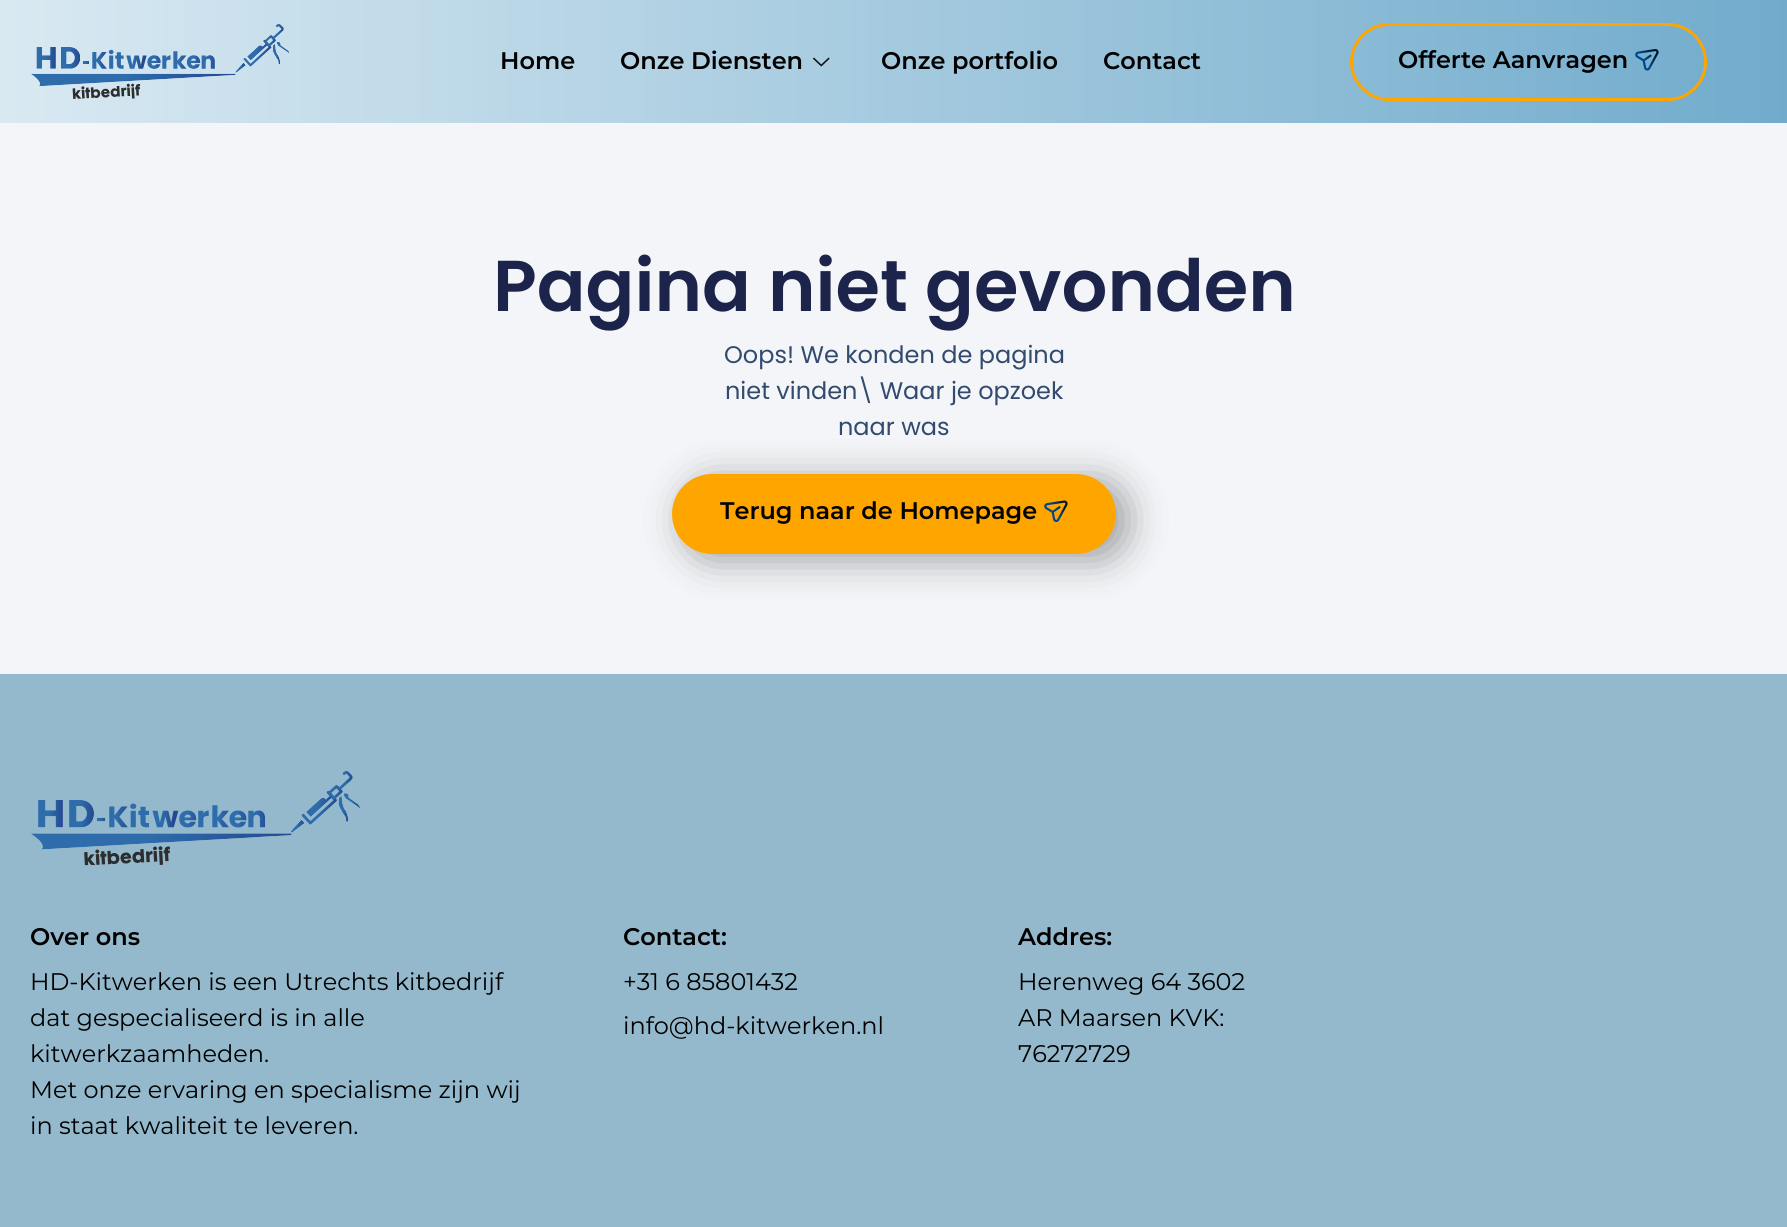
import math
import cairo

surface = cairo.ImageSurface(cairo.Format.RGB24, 1787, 1227)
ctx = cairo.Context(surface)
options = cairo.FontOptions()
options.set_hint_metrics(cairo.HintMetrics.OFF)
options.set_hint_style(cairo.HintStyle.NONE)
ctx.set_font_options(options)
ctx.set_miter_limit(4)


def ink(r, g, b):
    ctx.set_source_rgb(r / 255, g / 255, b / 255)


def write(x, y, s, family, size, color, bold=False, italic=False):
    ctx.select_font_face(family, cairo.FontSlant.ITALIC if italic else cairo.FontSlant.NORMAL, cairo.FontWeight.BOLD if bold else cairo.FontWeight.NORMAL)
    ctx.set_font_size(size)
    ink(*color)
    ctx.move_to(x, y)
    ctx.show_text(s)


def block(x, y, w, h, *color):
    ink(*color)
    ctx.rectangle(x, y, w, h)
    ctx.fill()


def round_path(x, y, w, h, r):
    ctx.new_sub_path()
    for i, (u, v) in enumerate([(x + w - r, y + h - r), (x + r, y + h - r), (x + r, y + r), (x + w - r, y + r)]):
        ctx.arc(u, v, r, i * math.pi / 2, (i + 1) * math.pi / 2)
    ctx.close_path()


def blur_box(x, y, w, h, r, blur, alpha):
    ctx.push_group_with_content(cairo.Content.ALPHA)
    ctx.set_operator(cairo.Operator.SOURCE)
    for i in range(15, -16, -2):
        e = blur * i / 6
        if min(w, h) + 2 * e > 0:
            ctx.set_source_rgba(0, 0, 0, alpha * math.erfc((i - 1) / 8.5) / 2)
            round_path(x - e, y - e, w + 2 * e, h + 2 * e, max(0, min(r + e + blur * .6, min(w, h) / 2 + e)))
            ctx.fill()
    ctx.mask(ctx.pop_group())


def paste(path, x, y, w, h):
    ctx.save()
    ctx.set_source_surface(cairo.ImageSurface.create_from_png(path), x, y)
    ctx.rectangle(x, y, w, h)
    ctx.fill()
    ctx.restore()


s1 = dict(family="Montserrat SemiBold", size=24, color=(0, 0, 0))
s2 = dict(family="Poppins SemiBold", size=72, color=(28, 36, 75))
s3 = dict(family="Poppins", size=24, color=(50, 74, 109))
s4 = dict(family="Montserrat", size=24, color=(0, 0, 0))

ink(243, 245, 248)
ctx.paint()
gradient = cairo.LinearGradient(0, 62, 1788, 61)
gradient.add_color_stop_rgba(0, 0.851, 0.914, 0.949, 1)
gradient.add_color_stop_rgba(1, 0.443, 0.671, 0.8, 1)
ctx.set_source(gradient)
ctx.rectangle(0, 0, 1787, 123)
ctx.fill()
paste("pic1.png", 31, 24, 258, 75)
write(500, 69, "Home", **s1)
write(620, 69, "Onze Diensten", **s1)
paste("pic2.png", 813, 57, 17, 10)
write(881, 69, "Onze portfolio", **s1)
write(1103, 69, "Contact", **s1)
round_path(1351.5, 24.5, 354, 75, 37.5)
ink(254, 165, 0)
ctx.set_line_width(3)
ctx.stroke()
write(1398, 68, "Offerte Aanvragen", **s1)
paste("pic3.png", 1635, 49, 24, 22)
write(493, 311, "Pagina niet gevonden", **s2)
write(724, 363, "Oops! We konden de pagina", **s3)
write(725, 399, "niet vinden\\ Waar je opzoek", **s3)
write(838, 435, "naar was", **s3)
ink(0, 0, 0)
blur_box(684, 480, 444, 80, 40, 19, 0.35)
ink(254, 165, 0)
round_path(673.5, 475.5, 441, 77, 38.5)
ctx.fill_preserve()
ctx.stroke()
write(720, 519, "Terug naar de Homepage", **s1)
paste("pic4.png", 1044, 500, 24, 22)
block(0, 674, 1787, 553, 148, 185, 204)
paste("pic5.png", 31, 771, 329, 95)
write(30, 945, "Over ons", **s1)
write(30, 990, "HD-Kitwerken is een Utrechts kitbedrijf", **s4)
write(30, 1026, "dat gespecialiseerd is in alle", **s4)
write(30, 1062, "kitwerkzaamheden.", **s4)
write(30, 1098, "Met onze ervaring en specialisme zijn wij", **s4)
write(30, 1134, "in staat kwaliteit te leveren.", **s4)
write(623, 945, "Contact:", **s1)
write(623, 990, "+31 6 85801432", **s4)
write(623, 1034, "info@hd-kitwerken.nl", **s4)
write(1018, 945, "Addres:", **s1)
write(1018, 990, "Herenweg 64 3602", **s4)
write(1018, 1026, "AR Maarsen KVK:", **s4)
write(1018, 1062, "76272729", **s4)
surface.write_to_png("screenshot.png")
